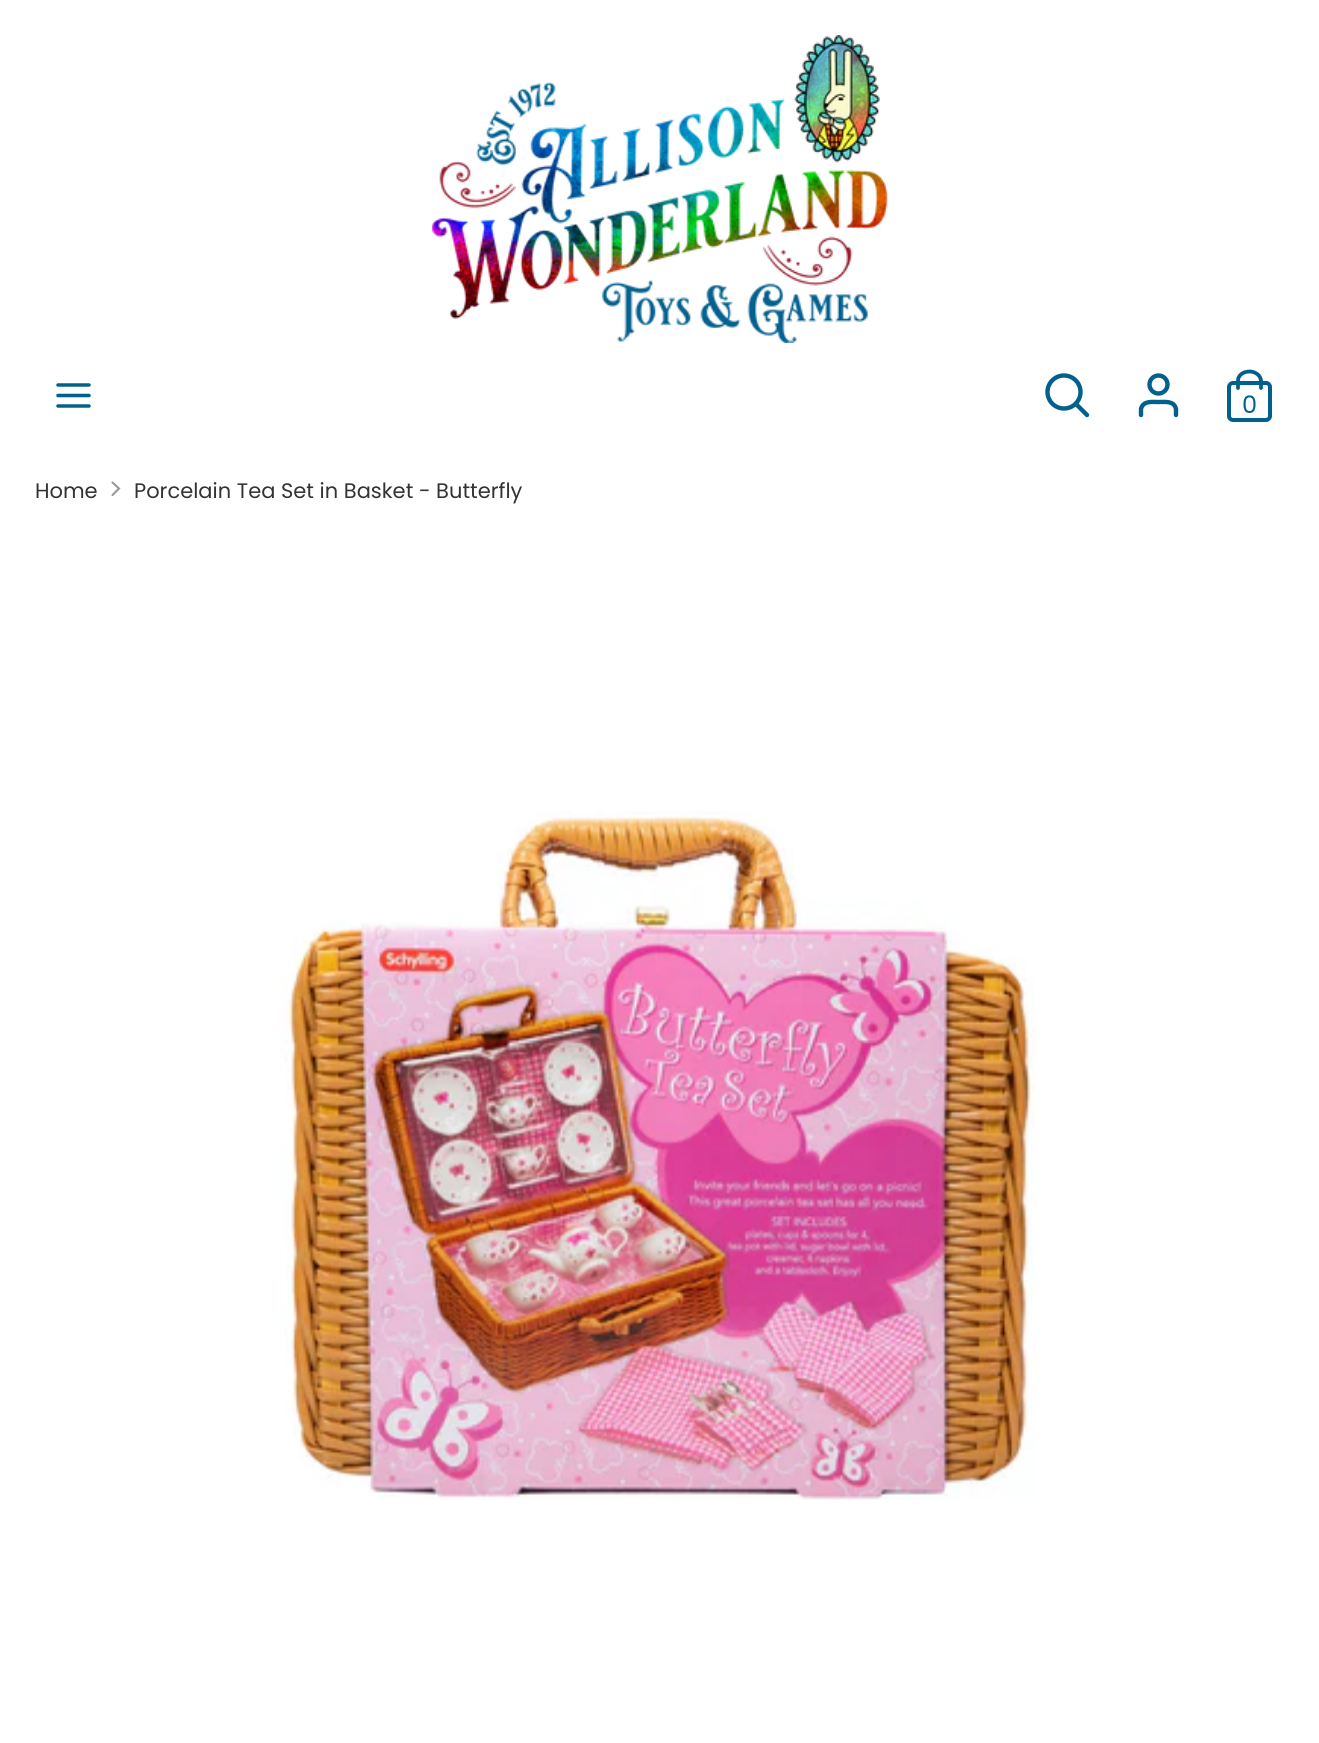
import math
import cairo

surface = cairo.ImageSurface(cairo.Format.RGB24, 1319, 1743)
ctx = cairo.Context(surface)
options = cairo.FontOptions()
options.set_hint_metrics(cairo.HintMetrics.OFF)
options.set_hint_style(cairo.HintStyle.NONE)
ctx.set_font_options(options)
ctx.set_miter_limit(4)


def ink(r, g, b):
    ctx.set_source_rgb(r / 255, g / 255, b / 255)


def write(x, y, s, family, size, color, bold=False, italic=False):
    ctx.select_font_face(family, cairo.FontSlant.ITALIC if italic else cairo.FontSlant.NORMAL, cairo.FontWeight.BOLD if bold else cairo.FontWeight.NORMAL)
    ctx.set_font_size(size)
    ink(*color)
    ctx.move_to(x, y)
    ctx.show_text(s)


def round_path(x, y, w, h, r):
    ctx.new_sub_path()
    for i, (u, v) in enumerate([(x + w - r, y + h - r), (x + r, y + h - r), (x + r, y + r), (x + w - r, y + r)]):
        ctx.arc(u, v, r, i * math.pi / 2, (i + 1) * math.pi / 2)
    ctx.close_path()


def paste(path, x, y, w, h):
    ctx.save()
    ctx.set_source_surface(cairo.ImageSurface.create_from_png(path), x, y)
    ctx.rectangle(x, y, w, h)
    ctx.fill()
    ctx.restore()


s1 = dict(family="Poppins", size=24, color=(2, 96, 141))
s2 = dict(family="Poppins", size=21, color=(51, 51, 51))

ink(255, 255, 255)
ctx.paint()
paste("pic1.png", 432, 35, 456, 308)
ctx.new_path()
ctx.move_to(58, 395.5)
ctx.line_to(89, 395.5)
ctx.move_to(58, 385)
ctx.line_to(89, 385)
ctx.move_to(58, 406)
ctx.line_to(89, 406)
ink(2, 96, 141)
ctx.set_line_width(3.5)
ctx.set_line_cap(cairo.LineCap.ROUND)
ctx.stroke()
ctx.arc(1064, 392, 16.5, 0, 2 * math.pi)
ctx.set_line_width(4.4)
ctx.set_line_cap(cairo.LineCap.BUTT)
ctx.stroke()
ctx.new_path()
ctx.move_to(1087, 415)
ctx.line_to(1076, 404)
ctx.set_line_cap(cairo.LineCap.ROUND)
ctx.stroke()
ctx.new_path()
ctx.move_to(1176, 415)
ctx.line_to(1176, 409)
ctx.curve_to(1174, 400.5, 1165, 402, 1158.5, 402)
ctx.curve_to(1152, 402, 1143, 400.5, 1141, 409)
ctx.line_to(1141, 415)
ctx.stroke()
ctx.arc(1158.5, 384.5, 9, 0, 2 * math.pi)
ctx.set_line_cap(cairo.LineCap.BUTT)
ctx.stroke()
round_path(1229, 383, 41, 37, 4)
ctx.set_line_width(4)
ctx.stroke()
ctx.new_path()
ctx.move_to(1238, 388)
ctx.line_to(1238, 380.5)
ctx.curve_to(1238, 375.5, 1243, 371.5, 1249.5, 371.5)
ctx.curve_to(1255.5, 371.5, 1260.5, 375.5, 1261, 380.5)
ctx.line_to(1261, 388)
ctx.set_line_width(3.8)
ctx.set_line_cap(cairo.LineCap.ROUND)
ctx.stroke()
write(1242, 413, "0", **s1)
write(35, 498, "Home", **s2)
ctx.new_path()
ctx.move_to(112.5, 495)
ctx.line_to(119, 488.5)
ctx.line_to(112.5, 482.5)
ink(153, 153, 153)
ctx.set_line_width(2.1)
ctx.stroke()
write(134, 498, "Porcelain Tea Set in Basket - Butterfly", **s2)
paste("pic2.png", 279, 811, 757, 689)
surface.write_to_png("screenshot.png")
